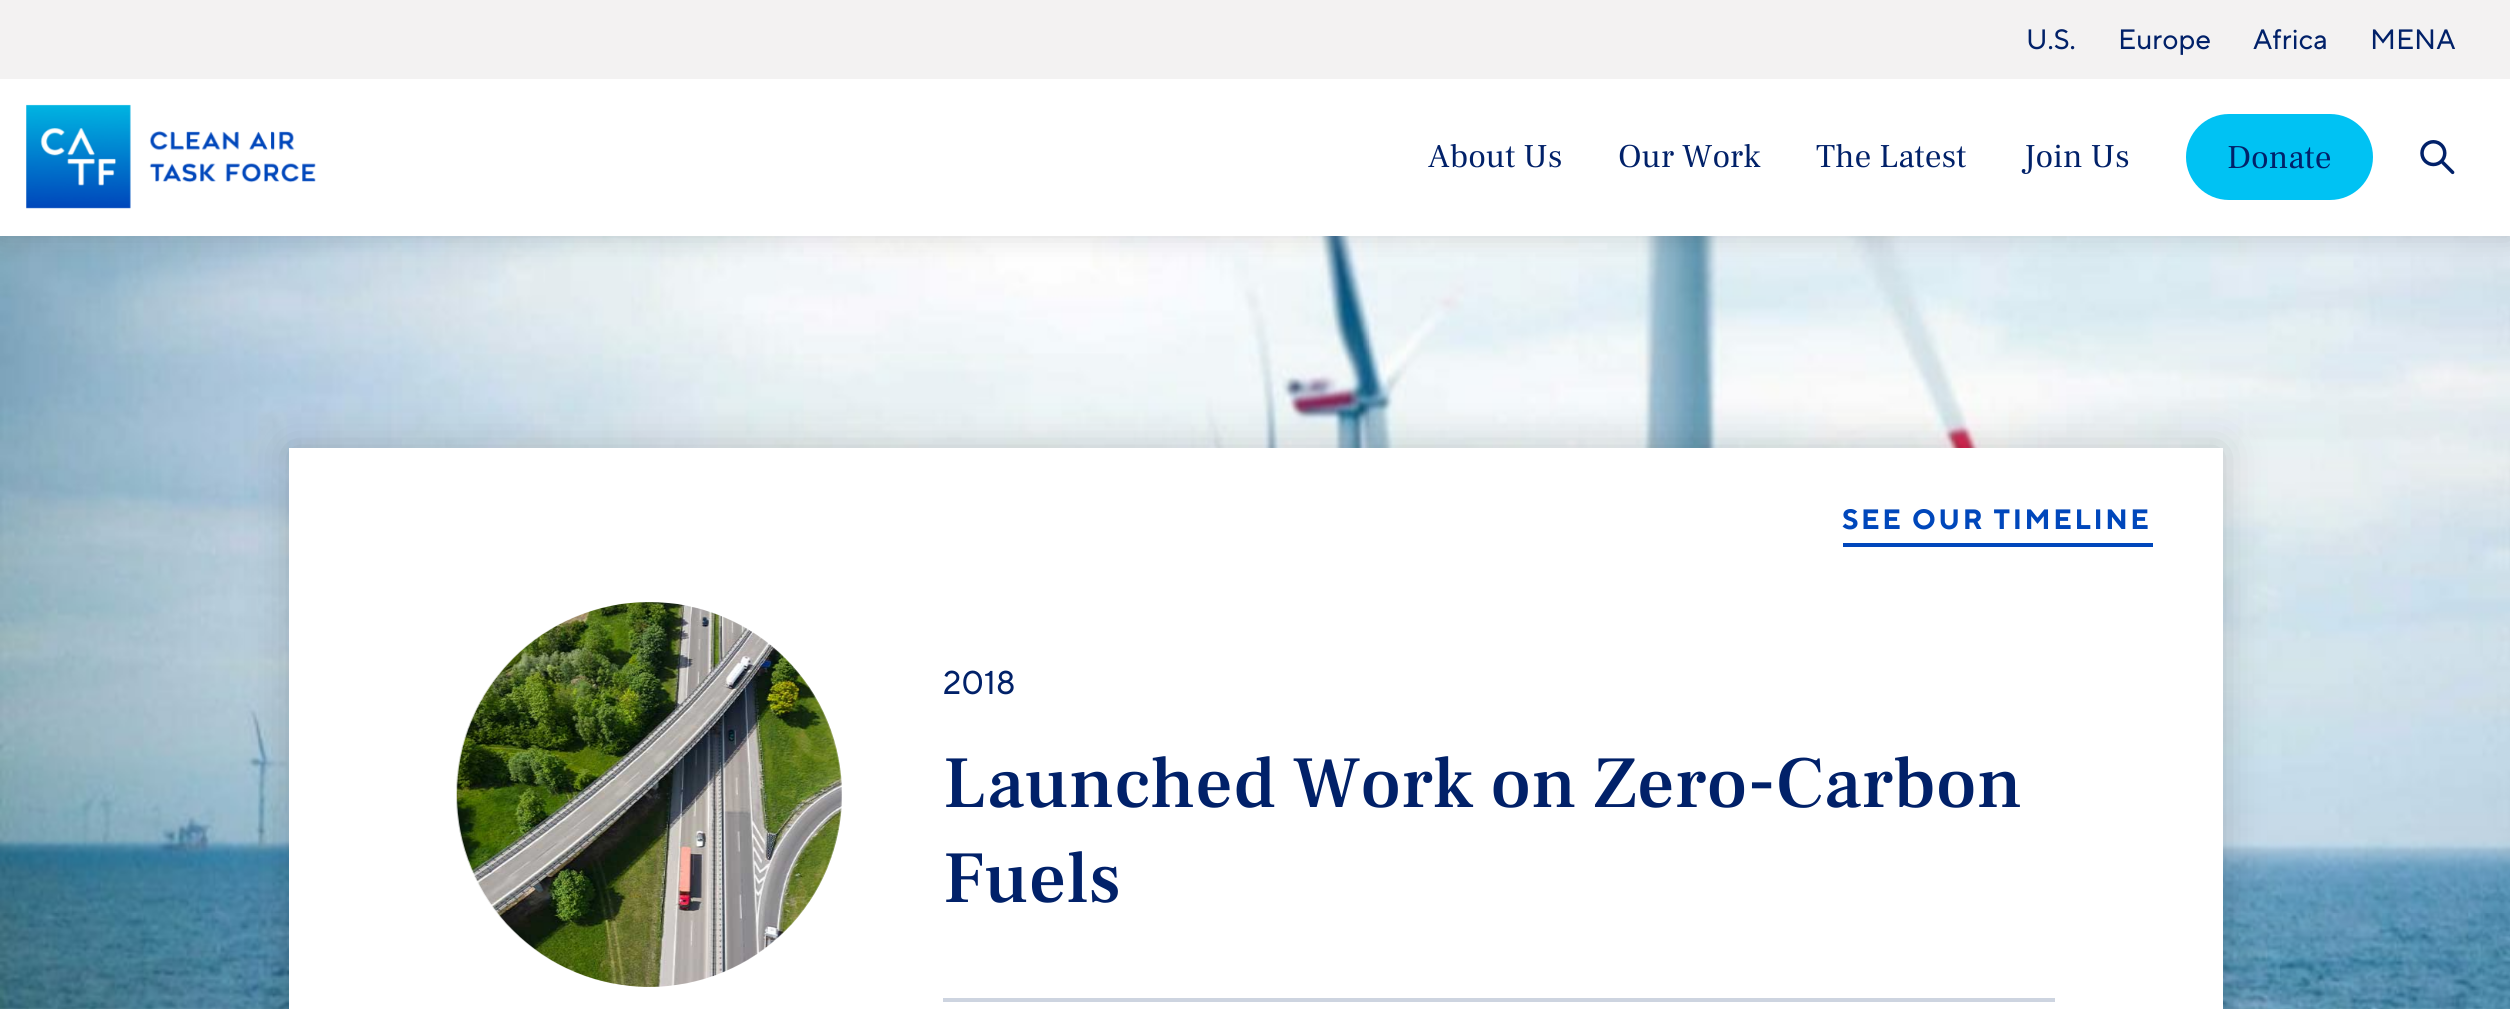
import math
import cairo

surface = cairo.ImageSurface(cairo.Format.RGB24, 2510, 1009)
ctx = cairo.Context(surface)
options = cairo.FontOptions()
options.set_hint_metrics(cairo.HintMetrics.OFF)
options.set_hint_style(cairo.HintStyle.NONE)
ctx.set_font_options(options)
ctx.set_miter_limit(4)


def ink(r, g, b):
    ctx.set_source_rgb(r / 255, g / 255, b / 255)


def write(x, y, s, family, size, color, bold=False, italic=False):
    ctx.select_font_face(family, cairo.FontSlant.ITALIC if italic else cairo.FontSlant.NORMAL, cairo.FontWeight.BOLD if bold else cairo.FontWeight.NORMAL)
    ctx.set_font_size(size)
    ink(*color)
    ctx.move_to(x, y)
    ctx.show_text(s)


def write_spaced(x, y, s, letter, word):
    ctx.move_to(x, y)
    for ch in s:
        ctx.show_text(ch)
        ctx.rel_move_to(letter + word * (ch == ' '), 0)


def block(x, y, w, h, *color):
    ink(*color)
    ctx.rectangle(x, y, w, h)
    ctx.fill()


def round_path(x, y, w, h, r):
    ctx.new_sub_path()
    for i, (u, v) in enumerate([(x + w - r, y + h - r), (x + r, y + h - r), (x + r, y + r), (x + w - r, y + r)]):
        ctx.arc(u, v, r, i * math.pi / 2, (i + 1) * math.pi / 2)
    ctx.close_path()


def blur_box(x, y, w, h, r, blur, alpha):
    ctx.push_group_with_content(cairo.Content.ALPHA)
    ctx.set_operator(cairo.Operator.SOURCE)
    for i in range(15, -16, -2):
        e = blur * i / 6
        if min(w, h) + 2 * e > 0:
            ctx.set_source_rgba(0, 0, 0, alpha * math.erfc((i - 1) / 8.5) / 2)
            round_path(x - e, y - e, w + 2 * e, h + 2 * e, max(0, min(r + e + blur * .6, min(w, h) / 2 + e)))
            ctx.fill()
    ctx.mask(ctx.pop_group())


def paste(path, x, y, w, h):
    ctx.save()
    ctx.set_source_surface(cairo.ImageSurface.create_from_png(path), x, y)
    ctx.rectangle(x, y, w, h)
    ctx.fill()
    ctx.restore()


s1 = dict(family="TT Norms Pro", size=28, color=(1, 33, 105))
s2 = dict(family="Frank Ruhl Libre", size=33.25, color=(1, 33, 105))
s3 = dict(family="TT Norms Pro", size=33, color=(1, 33, 105))
s4 = dict(family="Frank Ruhl Libre Medium", size=73.6, color=(1, 33, 105))

ink(255, 255, 255)
ctx.paint()
paste("pic3.png", 0, 236, 2510, 773)
ink(0, 0, 0)
blur_box(0, 0, 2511, 236, 0, 14, 0.15)
block(0, 79, 2510, 157, 255, 255, 255)
paste("pic1.png", 26, 104, 290, 105)
block(0, 0, 2510, 79, 243, 242, 242)
write(2026, 49, "U.S.", **s1)
write(2118, 49, "Europe", **s1)
write(2253, 49, "Africa", **s1)
write(2370, 49, "MENA", **s1)
write(1428, 167, "About Us", **s2)
write(1618, 167, "Our Work", **s2)
write(1816, 167, "The Latest", **s2)
write(2023, 167, "Join Us", **s2)
ink(0, 194, 243)
round_path(2186, 114, 187, 86, 43)
ctx.fill()
write(2227, 168, "Donate", **s2)
paste("pic2.png", 2420, 140, 35, 35)
ink(0, 0, 0)
blur_box(289, 448, 1934, 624, 0, 21, 0.18)
block(289, 448, 1934, 561, 255, 255, 255)
block(1843, 543, 310, 4, 0, 71, 187)
ctx.select_font_face("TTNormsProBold", cairo.FontSlant.NORMAL, cairo.FontWeight.BOLD)
ctx.set_font_size(28)
write_spaced(1842, 529, "SEE OUR TIMELINE", 2.6, 0)
paste("pic4.png", 456, 602, 386, 385)
write(943, 694, "2018", **s3)
block(943, 998, 1112, 4, 205, 212, 224)
write(943, 807, "Launched Work on Zero-Carbon", **s4)
write(943, 902, "Fuels", **s4)
surface.write_to_png("screenshot.png")
